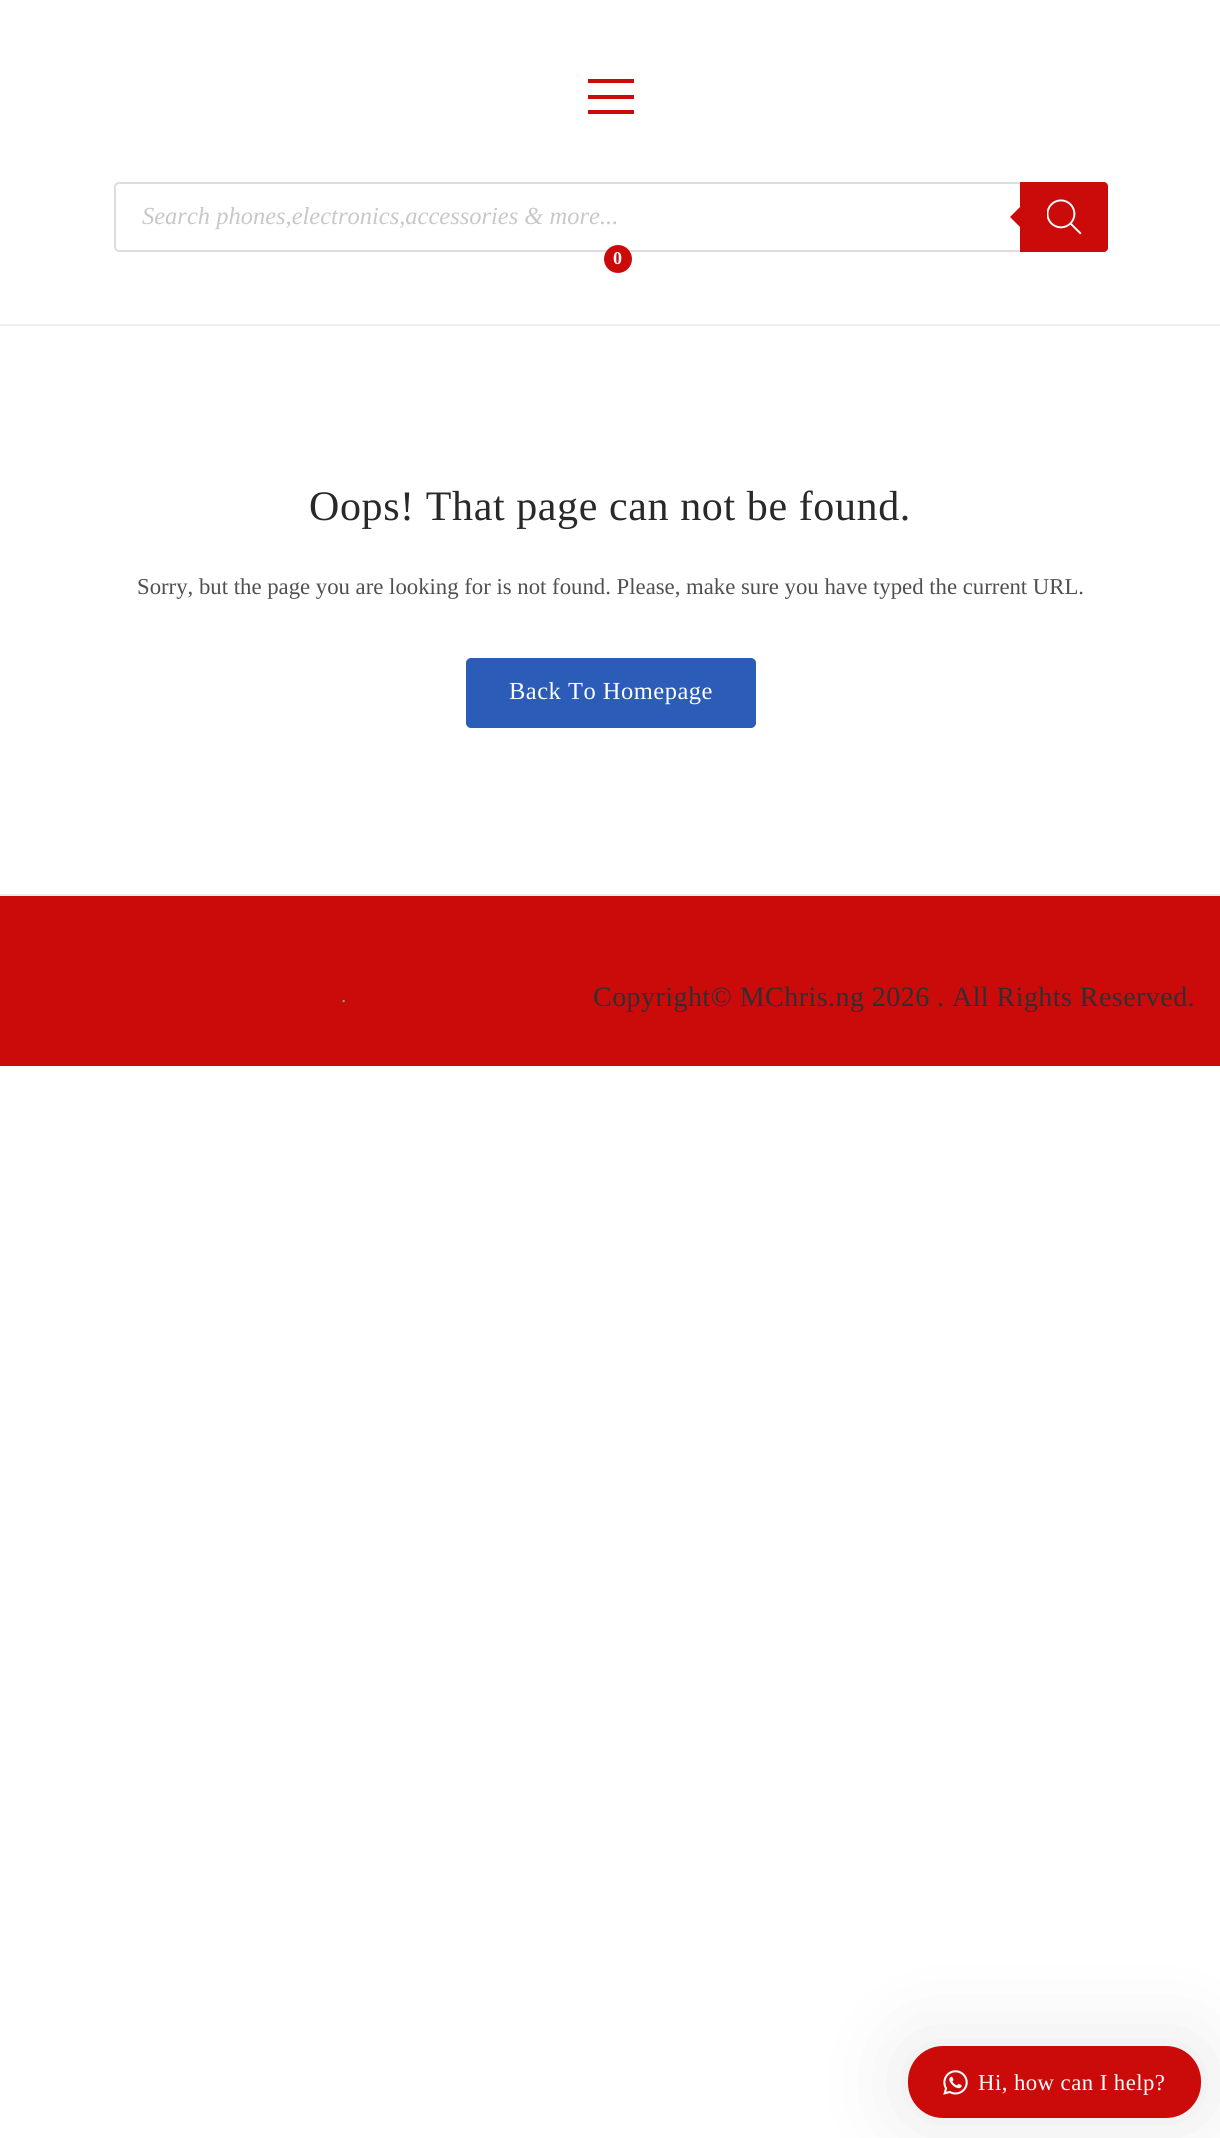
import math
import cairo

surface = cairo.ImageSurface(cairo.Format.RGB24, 1220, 2138)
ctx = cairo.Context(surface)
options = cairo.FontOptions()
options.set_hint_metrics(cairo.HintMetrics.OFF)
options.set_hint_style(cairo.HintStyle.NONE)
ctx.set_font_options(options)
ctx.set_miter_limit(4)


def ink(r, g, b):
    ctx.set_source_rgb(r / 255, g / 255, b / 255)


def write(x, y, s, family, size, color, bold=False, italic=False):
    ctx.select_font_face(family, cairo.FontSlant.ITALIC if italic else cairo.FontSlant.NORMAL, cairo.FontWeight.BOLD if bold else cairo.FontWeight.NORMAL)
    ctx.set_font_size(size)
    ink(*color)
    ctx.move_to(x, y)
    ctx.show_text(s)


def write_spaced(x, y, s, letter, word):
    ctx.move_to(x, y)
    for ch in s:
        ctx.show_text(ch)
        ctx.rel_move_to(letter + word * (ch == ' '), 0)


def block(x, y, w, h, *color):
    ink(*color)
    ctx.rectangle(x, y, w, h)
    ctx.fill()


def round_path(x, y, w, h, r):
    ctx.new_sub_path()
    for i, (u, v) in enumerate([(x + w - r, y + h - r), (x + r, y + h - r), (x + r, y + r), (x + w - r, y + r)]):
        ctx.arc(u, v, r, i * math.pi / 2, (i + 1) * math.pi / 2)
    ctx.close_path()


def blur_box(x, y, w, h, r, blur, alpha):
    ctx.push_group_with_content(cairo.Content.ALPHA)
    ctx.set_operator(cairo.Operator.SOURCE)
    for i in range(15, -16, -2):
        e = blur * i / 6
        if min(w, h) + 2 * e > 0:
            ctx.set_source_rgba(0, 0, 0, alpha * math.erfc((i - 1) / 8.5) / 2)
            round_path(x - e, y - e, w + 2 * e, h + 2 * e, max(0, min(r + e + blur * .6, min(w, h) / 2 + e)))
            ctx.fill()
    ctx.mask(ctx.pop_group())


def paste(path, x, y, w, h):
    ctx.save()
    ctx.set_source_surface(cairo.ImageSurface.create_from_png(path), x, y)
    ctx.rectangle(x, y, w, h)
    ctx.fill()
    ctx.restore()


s1 = dict(family="Liberation Serif", size=24.5, color=(200, 200, 200), italic=True)
s2 = dict(family="Liberation Serif", size=18, color=(255, 255, 255), bold=True)
s3 = dict(family="Liberation Serif", size=22.75, color=(80, 80, 80))
s4 = dict(family="Liberation Serif", size=21, color=(149, 149, 149))

ink(255, 255, 255)
ctx.paint()
block(0, 324, 1220, 2, 238, 238, 238)
block(588, 95, 46, 4, 203, 10, 10)
block(588, 79, 46, 4, 203, 10, 10)
block(588, 110, 46, 4, 203, 10, 10)
round_path(115, 183, 992, 68, 4)
ink(221, 221, 221)
ctx.stroke()
write(142, 224, "Search phones,electronics,accessories & more...", **s1)
ink(203, 10, 10)
ctx.new_path()
ctx.move_to(1020, 182)
ctx.line_to(1104, 182)
ctx.curve_to(1106, 182, 1108, 184, 1108, 186)
ctx.line_to(1108, 248)
ctx.curve_to(1108, 250, 1106, 252, 1104, 252)
ctx.line_to(1020, 252)
ctx.close_path()
ctx.fill()
ctx.new_path()
ctx.move_to(1024, 203)
ctx.line_to(1024, 231)
ctx.line_to(1010, 217)
ctx.close_path()
ctx.fill()
paste("pic1.png", 1047, 199, 35, 36)
ctx.arc(618, 259, 14, 0, 2 * math.pi)
ctx.fill()
write(613, 264, "0", **s2)
ctx.select_font_face("Liberation Serif")
ctx.set_font_size(42)
ink(41, 41, 41)
write_spaced(309, 520, "Oops! That page can not be found.", 0.6, 0)
write(137, 594, "Sorry, but the page you are looking for is not found. Please, make sure you have typed the current URL.", **s3)
ink(42, 92, 184)
round_path(466, 658, 290, 70, 5)
ctx.fill()
ctx.set_font_size(24.5)
ink(255, 255, 255)
write_spaced(509, 699, "Back To Homepage", 0.5, 0)
block(0, 896, 1220, 170, 203, 10, 10)
block(0, 894, 1220, 2, 238, 238, 238)
write(341, 1002, ".", **s4)
ctx.set_font_size(28)
ink(47, 47, 48)
write_spaced(593, 1006, "Copyright© MChris.ng 2026 . All Rights Reserved.", 0.45, 0)
ink(0, 0, 0)
blur_box(908, 2046, 293, 72, 35, 44, 0.1)
ink(203, 10, 10)
round_path(908, 2046, 293, 72, 35)
ctx.fill()
paste("pic2.png", 943, 2070, 25, 25)
ctx.set_font_size(22.75)
ink(255, 255, 255)
write_spaced(978, 2090, "Hi, how can I help?", 0.45, 0)
surface.write_to_png("screenshot.png")
